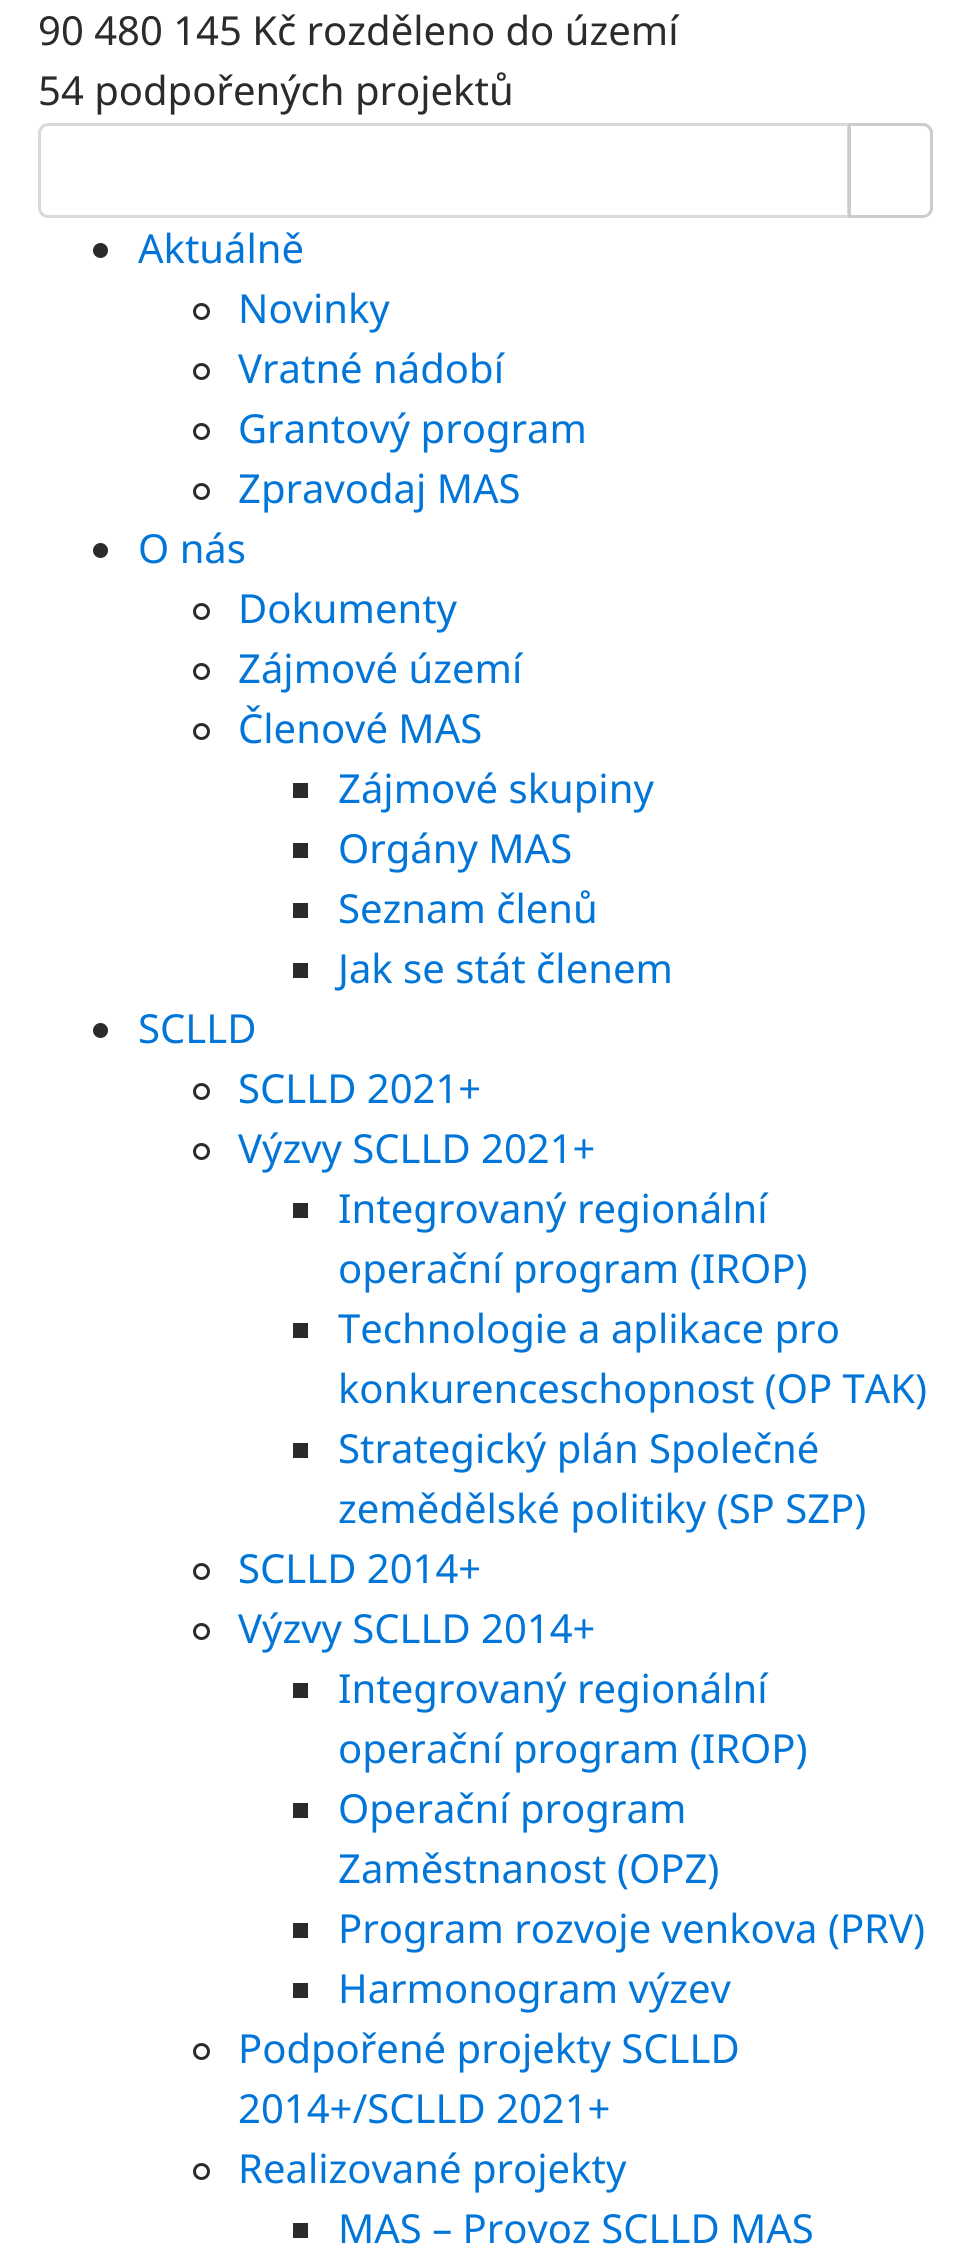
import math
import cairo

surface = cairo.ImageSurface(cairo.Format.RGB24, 969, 2254)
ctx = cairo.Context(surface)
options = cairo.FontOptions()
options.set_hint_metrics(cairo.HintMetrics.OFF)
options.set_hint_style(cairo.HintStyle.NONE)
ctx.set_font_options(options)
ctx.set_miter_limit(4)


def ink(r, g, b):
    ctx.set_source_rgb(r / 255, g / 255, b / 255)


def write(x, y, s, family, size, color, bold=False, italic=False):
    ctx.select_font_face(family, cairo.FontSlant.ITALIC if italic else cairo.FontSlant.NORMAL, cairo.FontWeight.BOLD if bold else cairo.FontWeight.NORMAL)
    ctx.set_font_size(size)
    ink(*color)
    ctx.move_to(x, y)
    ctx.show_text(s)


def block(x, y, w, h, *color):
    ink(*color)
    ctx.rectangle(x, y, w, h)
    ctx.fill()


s1 = dict(family="Noto Sans", size=40, color=(41, 43, 44))
s2 = dict(family="Noto Sans", size=40, color=(2, 117, 216))

ink(255, 255, 255)
ctx.paint()
write(38, 45, "90 480 145 Kč rozděleno do území", **s1)
write(38, 105, "54 podpořených projektů", **s1)
ctx.new_path()
ctx.move_to(48, 124.5)
ctx.line_to(848.5, 124.5)
ctx.line_to(848.5, 216.5)
ctx.line_to(48, 216.5)
ctx.curve_to(43.5, 216.5, 39.5, 212.5, 39.5, 208)
ctx.line_to(39.5, 133)
ctx.curve_to(39.5, 128.5, 43.5, 124.5, 48, 124.5)
ctx.close_path()
ink(217, 217, 217)
ctx.set_line_width(3)
ctx.stroke()
ink(255, 255, 255)
ctx.new_path()
ctx.move_to(849.5, 124.5)
ctx.line_to(923, 124.5)
ctx.curve_to(927.5, 124.5, 931.5, 128.5, 931.5, 133)
ctx.line_to(931.5, 208)
ctx.curve_to(931.5, 212.5, 927.5, 216.5, 923, 216.5)
ctx.line_to(849.5, 216.5)
ctx.close_path()
ctx.fill_preserve()
ink(204, 204, 204)
ctx.stroke()
ink(41, 43, 44)
ctx.arc(100.5, 250.5, 7.5, 0, 2 * math.pi)
ctx.fill()
write(138, 263, "Aktuálně", **s2)
ctx.new_path()
ctx.arc(201.5, 311.5, 7, 0, 2 * math.pi)
ink(41, 43, 44)
ctx.stroke()
write(238, 323, "Novinky", **s2)
ctx.new_path()
ctx.arc(201.5, 371.5, 7, 0, 2 * math.pi)
ink(41, 43, 44)
ctx.stroke()
write(238, 383, "Vratné nádobí", **s2)
ctx.new_path()
ctx.arc(201.5, 431.5, 7, 0, 2 * math.pi)
ink(41, 43, 44)
ctx.stroke()
write(238, 443, "Grantový program", **s2)
ctx.new_path()
ctx.arc(201.5, 491.5, 7, 0, 2 * math.pi)
ink(41, 43, 44)
ctx.stroke()
write(238, 503, "Zpravodaj MAS", **s2)
ink(41, 43, 44)
ctx.new_path()
ctx.arc(100.5, 550.5, 7.5, 0, 2 * math.pi)
ctx.fill()
write(138, 563, "O nás", **s2)
ctx.new_path()
ctx.arc(201.5, 611.5, 7, 0, 2 * math.pi)
ink(41, 43, 44)
ctx.stroke()
write(238, 623, "Dokumenty", **s2)
ctx.new_path()
ctx.arc(201.5, 671.5, 7, 0, 2 * math.pi)
ink(41, 43, 44)
ctx.stroke()
write(238, 683, "Zájmové území", **s2)
ctx.new_path()
ctx.arc(201.5, 731.5, 7, 0, 2 * math.pi)
ink(41, 43, 44)
ctx.stroke()
write(238, 743, "Členové MAS", **s2)
block(293, 783, 15, 15, 41, 43, 44)
write(338, 803, "Zájmové skupiny", **s2)
block(293, 843, 15, 15, 41, 43, 44)
write(338, 863, "Orgány MAS", **s2)
block(293, 903, 15, 15, 41, 43, 44)
write(338, 923, "Seznam členů", **s2)
block(293, 963, 15, 15, 41, 43, 44)
write(338, 983, "Jak se stát členem", **s2)
ink(41, 43, 44)
ctx.new_path()
ctx.arc(100.5, 1030.5, 7.5, 0, 2 * math.pi)
ctx.fill()
write(138, 1043, "SCLLD", **s2)
ctx.new_path()
ctx.arc(201.5, 1091.5, 7, 0, 2 * math.pi)
ink(41, 43, 44)
ctx.stroke()
write(238, 1103, "SCLLD 2021+", **s2)
ctx.new_path()
ctx.arc(201.5, 1151.5, 7, 0, 2 * math.pi)
ink(41, 43, 44)
ctx.stroke()
write(238, 1163, "Výzvy SCLLD 2021+", **s2)
block(293, 1203, 15, 15, 41, 43, 44)
write(338, 1223, "Integrovaný regionální", **s2)
write(338, 1283, "operační program (IROP)", **s2)
block(293, 1323, 15, 15, 41, 43, 44)
write(338, 1343, "Technologie a aplikace pro", **s2)
write(338, 1403, "konkurenceschopnost (OP TAK)", **s2)
block(293, 1443, 15, 15, 41, 43, 44)
write(338, 1463, "Strategický plán Společné", **s2)
write(338, 1523, "zemědělské politiky (SP SZP)", **s2)
ctx.new_path()
ctx.arc(201.5, 1571.5, 7, 0, 2 * math.pi)
ink(41, 43, 44)
ctx.stroke()
write(238, 1583, "SCLLD 2014+", **s2)
ctx.new_path()
ctx.arc(201.5, 1631.5, 7, 0, 2 * math.pi)
ink(41, 43, 44)
ctx.stroke()
write(238, 1643, "Výzvy SCLLD 2014+", **s2)
block(293, 1683, 15, 15, 41, 43, 44)
write(338, 1703, "Integrovaný regionální", **s2)
write(338, 1763, "operační program (IROP)", **s2)
block(293, 1803, 15, 15, 41, 43, 44)
write(338, 1823, "Operační program", **s2)
write(338, 1883, "Zaměstnanost (OPZ)", **s2)
block(293, 1923, 15, 15, 41, 43, 44)
write(338, 1943, "Program rozvoje venkova (PRV)", **s2)
block(293, 1983, 15, 15, 41, 43, 44)
write(338, 2003, "Harmonogram výzev", **s2)
ctx.new_path()
ctx.arc(201.5, 2051.5, 7, 0, 2 * math.pi)
ink(41, 43, 44)
ctx.stroke()
write(238, 2063, "Podpořené projekty SCLLD", **s2)
write(238, 2123, "2014+/SCLLD 2021+", **s2)
ctx.new_path()
ctx.arc(201.5, 2171.5, 7, 0, 2 * math.pi)
ink(41, 43, 44)
ctx.stroke()
write(238, 2183, "Realizované projekty", **s2)
block(293, 2223, 15, 15, 41, 43, 44)
write(338, 2243, "MAS – Provoz SCLLD MAS", **s2)
surface.write_to_png("screenshot.png")
